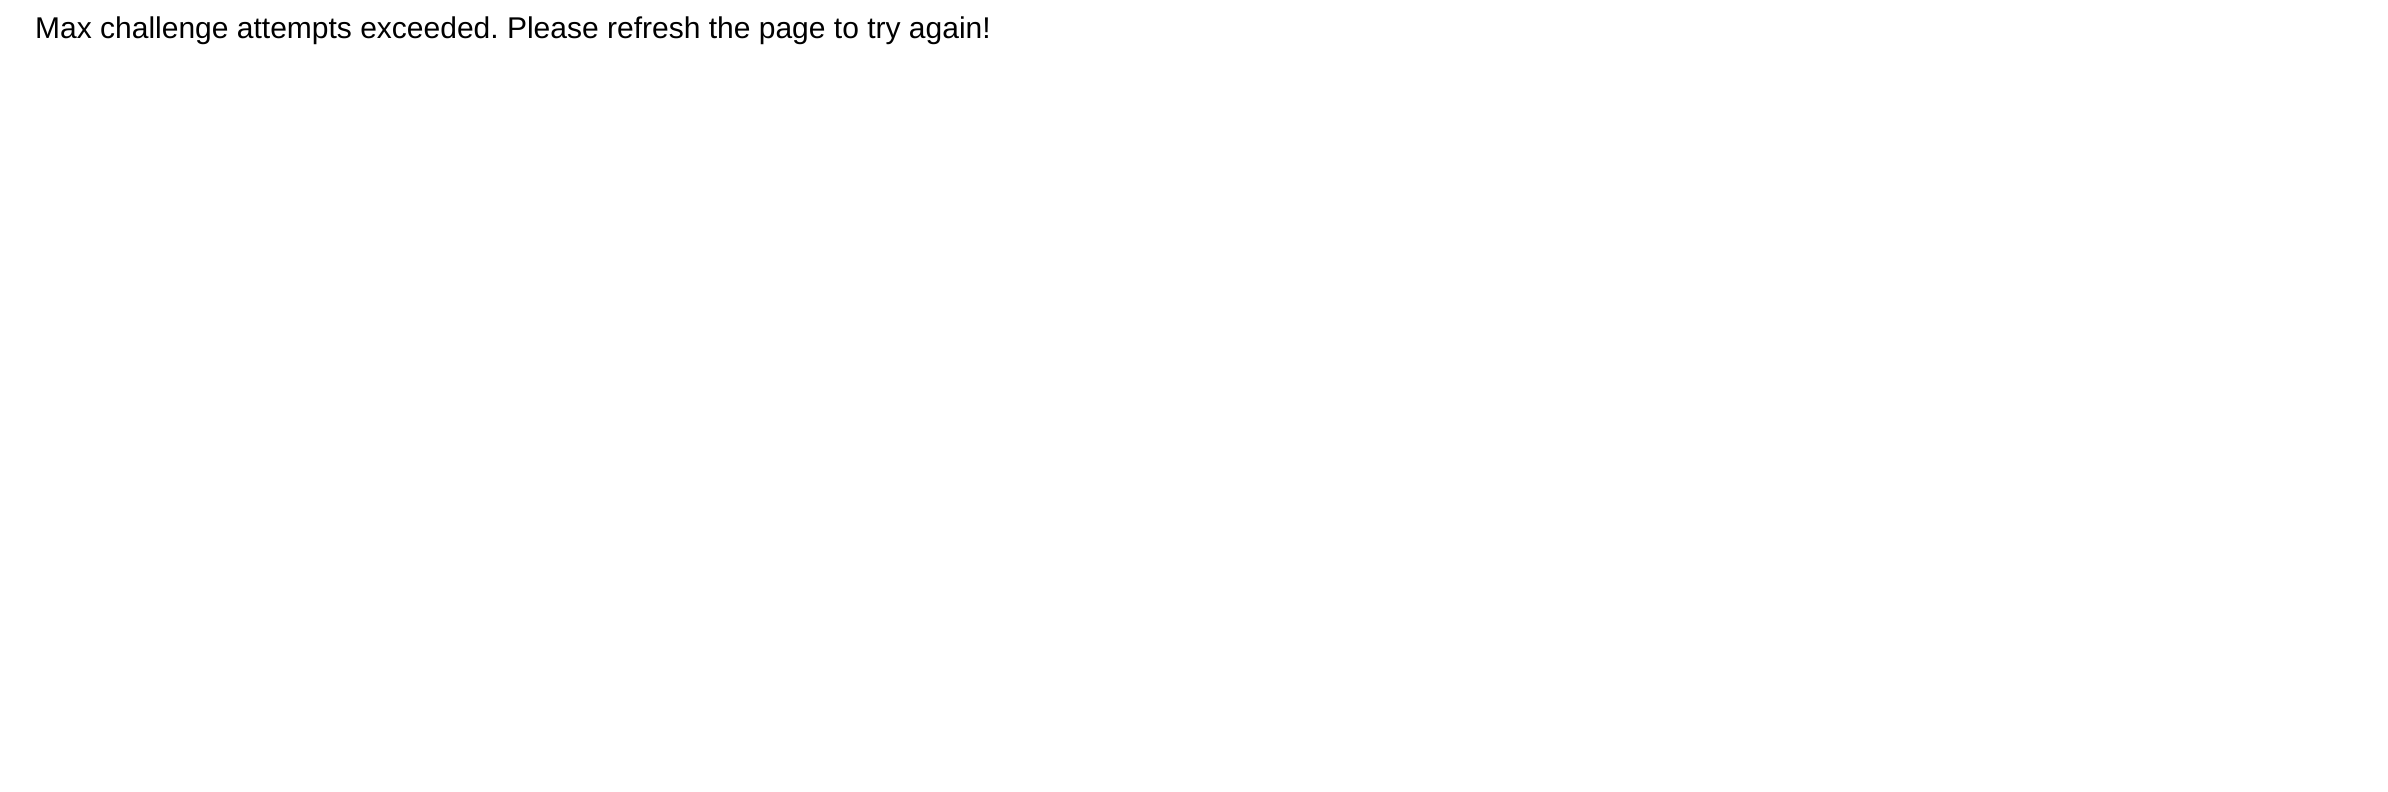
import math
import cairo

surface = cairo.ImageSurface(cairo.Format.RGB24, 2388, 792)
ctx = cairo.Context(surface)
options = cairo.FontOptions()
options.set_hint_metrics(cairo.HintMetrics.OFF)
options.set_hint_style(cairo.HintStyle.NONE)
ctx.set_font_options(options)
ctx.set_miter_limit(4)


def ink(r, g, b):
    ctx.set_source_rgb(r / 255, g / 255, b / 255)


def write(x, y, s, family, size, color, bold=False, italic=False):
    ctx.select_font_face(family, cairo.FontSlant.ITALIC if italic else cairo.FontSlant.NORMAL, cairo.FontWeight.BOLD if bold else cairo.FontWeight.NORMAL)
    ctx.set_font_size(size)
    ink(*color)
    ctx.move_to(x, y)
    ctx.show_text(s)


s1 = dict(family="Liberation Sans", size=30, color=(0, 0, 0))

ink(255, 255, 255)
ctx.paint()
write(35, 38, "Max challenge attempts exceeded. Please refresh the page to try again!", **s1)
surface.write_to_png("screenshot.png")
